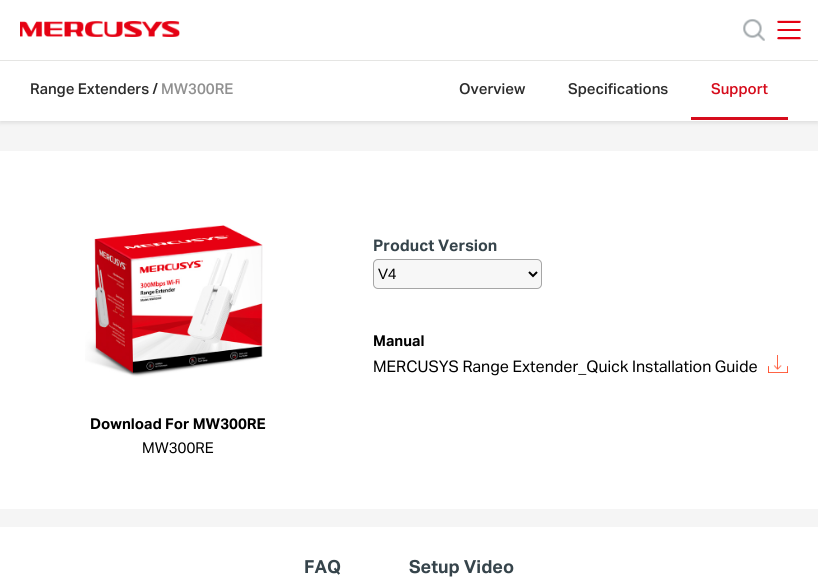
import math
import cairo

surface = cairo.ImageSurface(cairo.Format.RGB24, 818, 588)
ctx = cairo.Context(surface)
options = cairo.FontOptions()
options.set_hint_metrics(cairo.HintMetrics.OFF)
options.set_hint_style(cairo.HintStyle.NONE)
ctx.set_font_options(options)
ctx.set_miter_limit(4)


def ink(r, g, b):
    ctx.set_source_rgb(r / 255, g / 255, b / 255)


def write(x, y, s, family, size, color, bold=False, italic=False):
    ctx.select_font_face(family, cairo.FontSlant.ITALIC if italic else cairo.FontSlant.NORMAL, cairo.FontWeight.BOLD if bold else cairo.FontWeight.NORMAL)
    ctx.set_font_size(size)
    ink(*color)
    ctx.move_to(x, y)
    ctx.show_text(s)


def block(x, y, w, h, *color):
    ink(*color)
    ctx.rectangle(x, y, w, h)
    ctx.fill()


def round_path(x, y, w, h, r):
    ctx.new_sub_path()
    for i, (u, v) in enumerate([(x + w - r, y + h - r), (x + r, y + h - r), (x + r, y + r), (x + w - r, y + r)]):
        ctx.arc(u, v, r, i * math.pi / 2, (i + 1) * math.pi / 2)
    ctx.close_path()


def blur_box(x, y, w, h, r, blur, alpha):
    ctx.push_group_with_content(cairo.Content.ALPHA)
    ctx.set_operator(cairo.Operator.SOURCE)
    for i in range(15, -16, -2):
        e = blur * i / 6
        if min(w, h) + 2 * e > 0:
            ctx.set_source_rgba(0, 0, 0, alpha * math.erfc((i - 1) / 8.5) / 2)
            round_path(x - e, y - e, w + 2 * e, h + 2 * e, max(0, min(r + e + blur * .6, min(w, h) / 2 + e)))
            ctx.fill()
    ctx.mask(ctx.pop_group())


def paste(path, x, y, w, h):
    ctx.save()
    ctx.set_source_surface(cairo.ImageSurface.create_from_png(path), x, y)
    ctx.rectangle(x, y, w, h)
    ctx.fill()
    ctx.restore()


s1 = dict(family="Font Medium", size=15, color=(44, 44, 44))
s2 = dict(family="Font Medium", size=15, color=(144, 144, 144))
s3 = dict(family="Font Medium", size=15, color=(214, 12, 28))
s4 = dict(family="Font", size=16, color=(54, 68, 75), bold=True)
s5 = dict(family="Liberation Sans", size=15, color=(0, 0, 0))
s6 = dict(family="Font", size=15, color=(0, 0, 0), bold=True)
s7 = dict(family="Font", size=16, color=(0, 0, 0))
s8 = dict(family="Font", size=15, color=(0, 0, 0))
s9 = dict(family="Font", size=18, color=(54, 68, 75), bold=True)

ink(245, 245, 245)
ctx.paint()
ink(12, 12, 12)
blur_box(0, 63, 818, 60, 0, 2, 0.1)
block(0, 0, 818, 60, 255, 255, 255)
block(0, 60, 818, 1, 229, 229, 227)
paste("pic1.png", 20, 21, 160, 16)
paste("pic2.png", 743, 19, 22, 22)
paste("pic3.png", 777, 20, 24, 20)
block(0, 61, 818, 60, 255, 255, 255)
write(30, 94, "Range Extenders /", **s1)
write(161, 94, "MW300RE", **s2)
write(459, 94, "Overview", **s1)
write(568, 94, "Specifications", **s1)
block(691, 117, 97, 3, 214, 12, 28)
write(711, 94, "Support", **s3)
block(0, 151, 818, 358, 255, 255, 255)
write(373, 251, "Product Version", **s4)
ink(247, 247, 247)
round_path(373.5, 259.5, 168, 29, 4.5)
ctx.fill_preserve()
ink(166, 166, 166)
ctx.set_line_width(1)
ctx.stroke()
ctx.new_path()
ctx.move_to(529, 272)
ctx.line_to(533, 276)
ctx.line_to(537, 272)
ink(0, 0, 0)
ctx.set_line_width(2)
ctx.stroke()
write(378, 279, "V4", **s5)
write(373, 346, "Manual", **s6)
write(373, 372, "MERCUSYS Range Extender_Quick Installation Guide", **s7)
paste("pic4.png", 768, 355, 20, 18)
paste("pic5.png", 85, 225, 178, 152)
write(90, 429, "Download For MW300RE", **s6)
write(142, 453, "MW300RE", **s8)
block(0, 527, 818, 61, 255, 255, 255)
write(304, 573, "FAQ", **s9)
write(409, 573, "Setup Video", **s9)
surface.write_to_png("screenshot.png")
